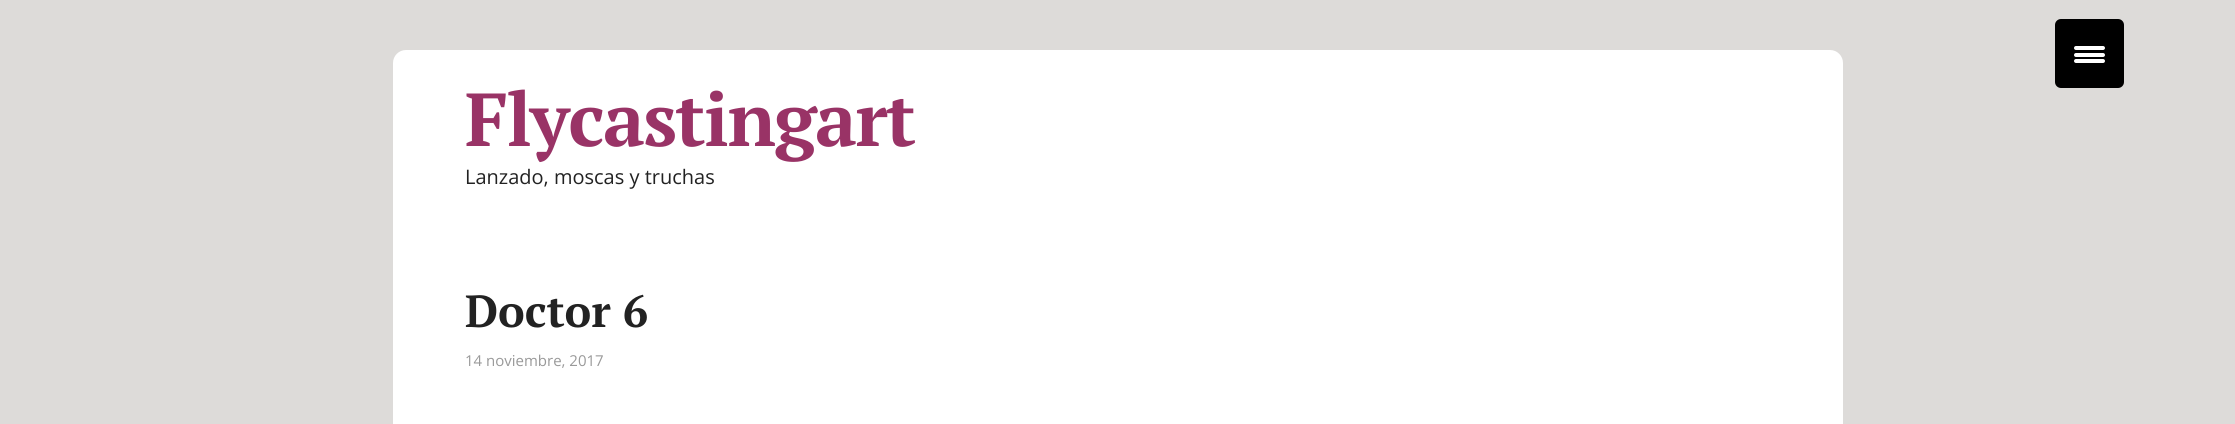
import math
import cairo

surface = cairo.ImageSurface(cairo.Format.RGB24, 2235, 424)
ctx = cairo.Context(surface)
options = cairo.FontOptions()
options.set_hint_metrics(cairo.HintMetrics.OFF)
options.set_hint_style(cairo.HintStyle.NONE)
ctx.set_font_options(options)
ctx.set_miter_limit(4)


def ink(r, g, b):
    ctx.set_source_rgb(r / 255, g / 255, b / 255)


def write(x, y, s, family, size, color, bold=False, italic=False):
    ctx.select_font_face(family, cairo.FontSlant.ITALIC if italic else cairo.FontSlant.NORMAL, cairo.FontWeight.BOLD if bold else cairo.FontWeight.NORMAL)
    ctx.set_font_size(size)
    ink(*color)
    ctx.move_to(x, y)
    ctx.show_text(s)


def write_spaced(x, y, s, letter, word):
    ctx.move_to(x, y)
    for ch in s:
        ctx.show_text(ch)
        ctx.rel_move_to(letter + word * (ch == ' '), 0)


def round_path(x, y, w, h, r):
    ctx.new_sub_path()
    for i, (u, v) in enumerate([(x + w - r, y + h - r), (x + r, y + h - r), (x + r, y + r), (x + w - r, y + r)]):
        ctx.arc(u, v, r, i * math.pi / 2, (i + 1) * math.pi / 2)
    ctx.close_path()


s1 = dict(family="Open Sans", size=20, color=(34, 34, 34))
s2 = dict(family="PT Serif", size=45, color=(34, 34, 34), bold=True)
s3 = dict(family="Open Sans", size=15, color=(153, 153, 153))

ink(221, 219, 217)
ctx.paint()
ink(0, 0, 0)
round_path(2055, 19, 69, 69, 6)
ctx.fill()
ink(255, 255, 255)
round_path(2074, 53, 31, 4, 2)
ctx.fill()
round_path(2074, 46, 31, 4, 2)
ctx.fill()
round_path(2074, 59, 31, 4, 2)
ctx.fill()
round_path(393, 50, 1450, 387, 13)
ctx.fill()
ctx.select_font_face("PT Serif", cairo.FontSlant.NORMAL, cairo.FontWeight.BOLD)
ctx.set_font_size(75)
ink(153, 51, 102)
write_spaced(465, 146, "Flycastingart", -1.5, 0)
write(465, 184, "Lanzado, moscas y truchas", **s1)
write(465, 327, "Doctor 6", **s2)
write(465, 366, "14 noviembre, 2017", **s3)
surface.write_to_png("screenshot.png")
